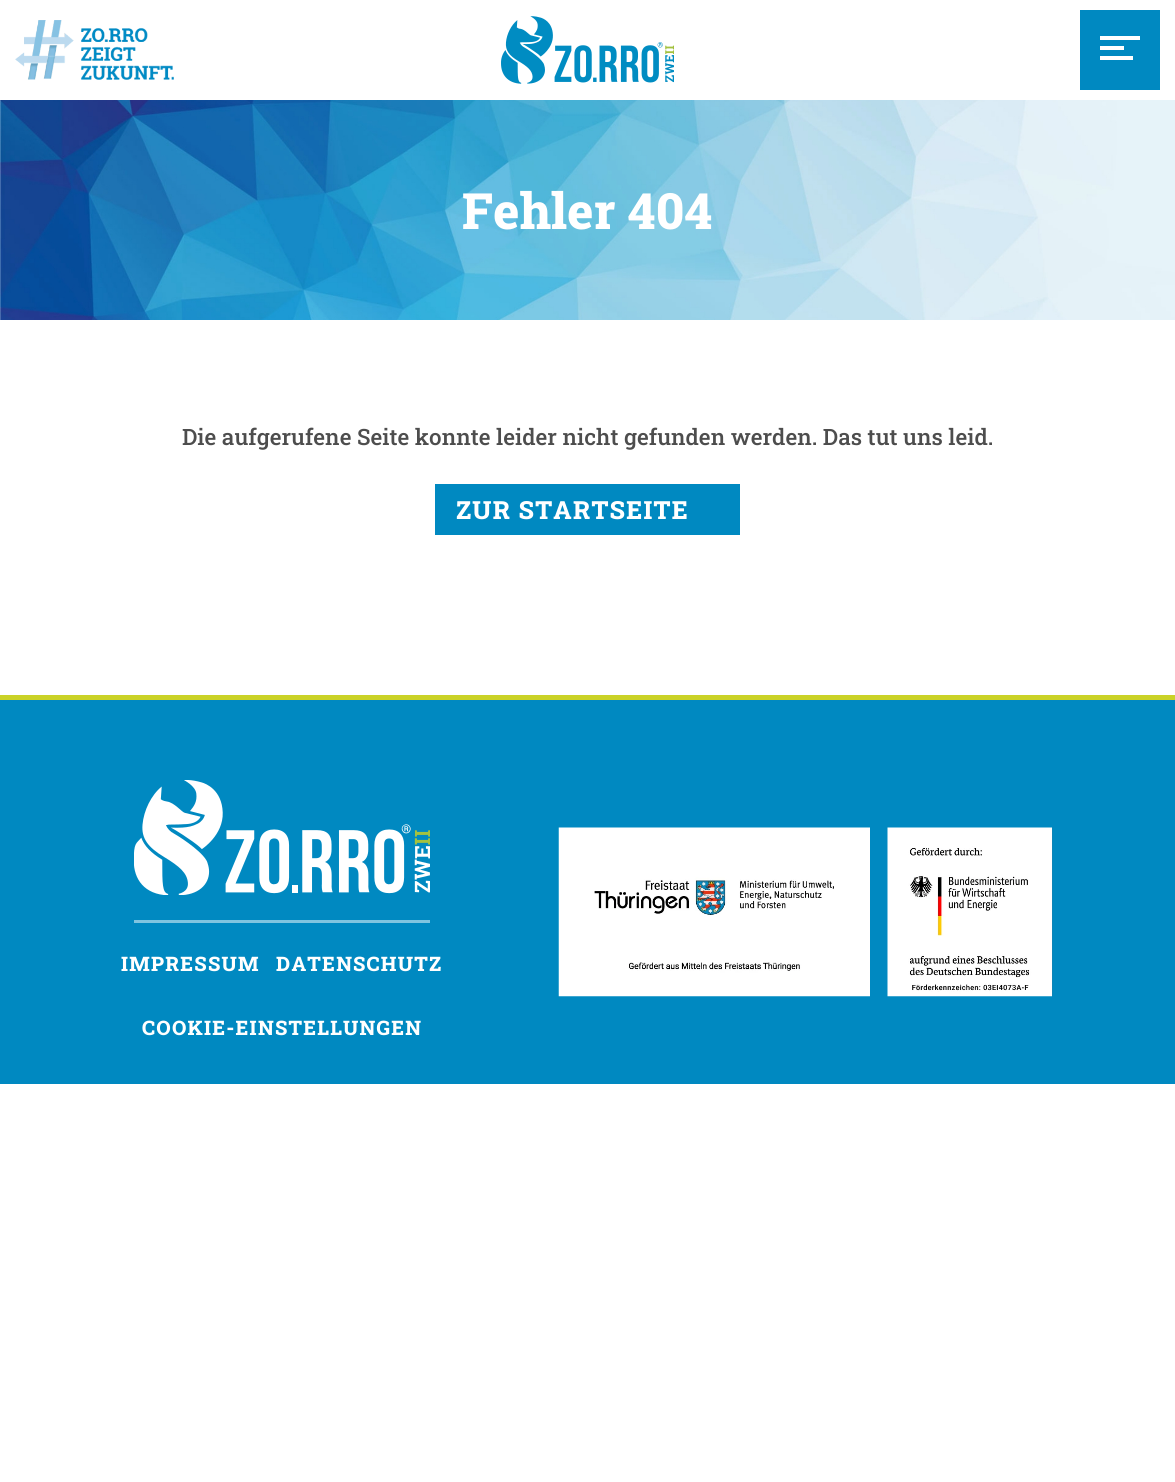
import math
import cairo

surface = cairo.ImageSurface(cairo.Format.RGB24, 1175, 1482)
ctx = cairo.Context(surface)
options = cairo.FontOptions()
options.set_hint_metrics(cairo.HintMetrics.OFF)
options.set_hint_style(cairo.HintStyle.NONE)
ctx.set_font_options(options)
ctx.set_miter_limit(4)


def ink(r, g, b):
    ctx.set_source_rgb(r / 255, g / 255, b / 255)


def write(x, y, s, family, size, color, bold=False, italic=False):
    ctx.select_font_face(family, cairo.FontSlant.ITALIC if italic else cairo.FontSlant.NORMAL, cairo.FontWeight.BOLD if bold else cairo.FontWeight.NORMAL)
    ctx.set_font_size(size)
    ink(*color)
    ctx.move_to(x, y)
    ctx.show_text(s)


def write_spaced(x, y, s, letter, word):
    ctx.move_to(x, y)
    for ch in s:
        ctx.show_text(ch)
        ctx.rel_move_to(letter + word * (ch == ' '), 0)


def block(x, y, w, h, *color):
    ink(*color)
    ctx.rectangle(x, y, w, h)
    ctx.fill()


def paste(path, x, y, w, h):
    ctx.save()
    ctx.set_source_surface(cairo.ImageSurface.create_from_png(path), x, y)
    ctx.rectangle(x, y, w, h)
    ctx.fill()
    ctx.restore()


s1 = dict(family="Roboto Slab ExtraBold", size=50, color=(255, 255, 255))
s2 = dict(family="Roboto Slab Medium", size=22.5, color=(77, 77, 77))

ink(255, 255, 255)
ctx.paint()
paste("pic1.png", 15, 20, 159, 60)
paste("pic2.png", 501, 16, 173, 68)
block(1080, 10, 80, 80, 0, 137, 193)
block(1100, 46, 24, 4, 255, 255, 255)
block(1100, 36, 40, 4, 255, 255, 255)
block(1100, 56, 33, 4, 255, 255, 255)
paste("pic3.png", 0, 100, 1175, 220)
write(462, 229, "Fehler 404", **s1)
write(182, 445, "Die aufgerufene Seite konnte leider nicht gefunden werden. Das tut uns leid.", **s2)
block(435, 484, 305, 51, 0, 137, 193)
ctx.select_font_face("Roboto Slab ExtraBold")
ctx.set_font_size(25)
ink(255, 255, 255)
write_spaced(456, 519, "ZUR STARTSEITE", 1.25, 0)
block(0, 700, 1175, 384, 0, 137, 193)
block(0, 695, 1175, 5, 202, 210, 39)
paste("pic4.png", 134, 780, 296, 115)
block(134, 920, 296, 3, 128, 196, 224)
ctx.set_font_size(20)
ink(255, 255, 255)
write_spaced(121, 971, "IMPRESSUM", 1.25, 0)
write_spaced(276, 971, "DATENSCHUTZ", 1.25, 0)
write_spaced(142, 1035, "COOKIE-EINSTELLUNGEN", 1.25, 0)
paste("pic5.png", 558, 827, 312, 170)
paste("pic6.png", 887, 827, 166, 170)
surface.write_to_png("screenshot.png")
